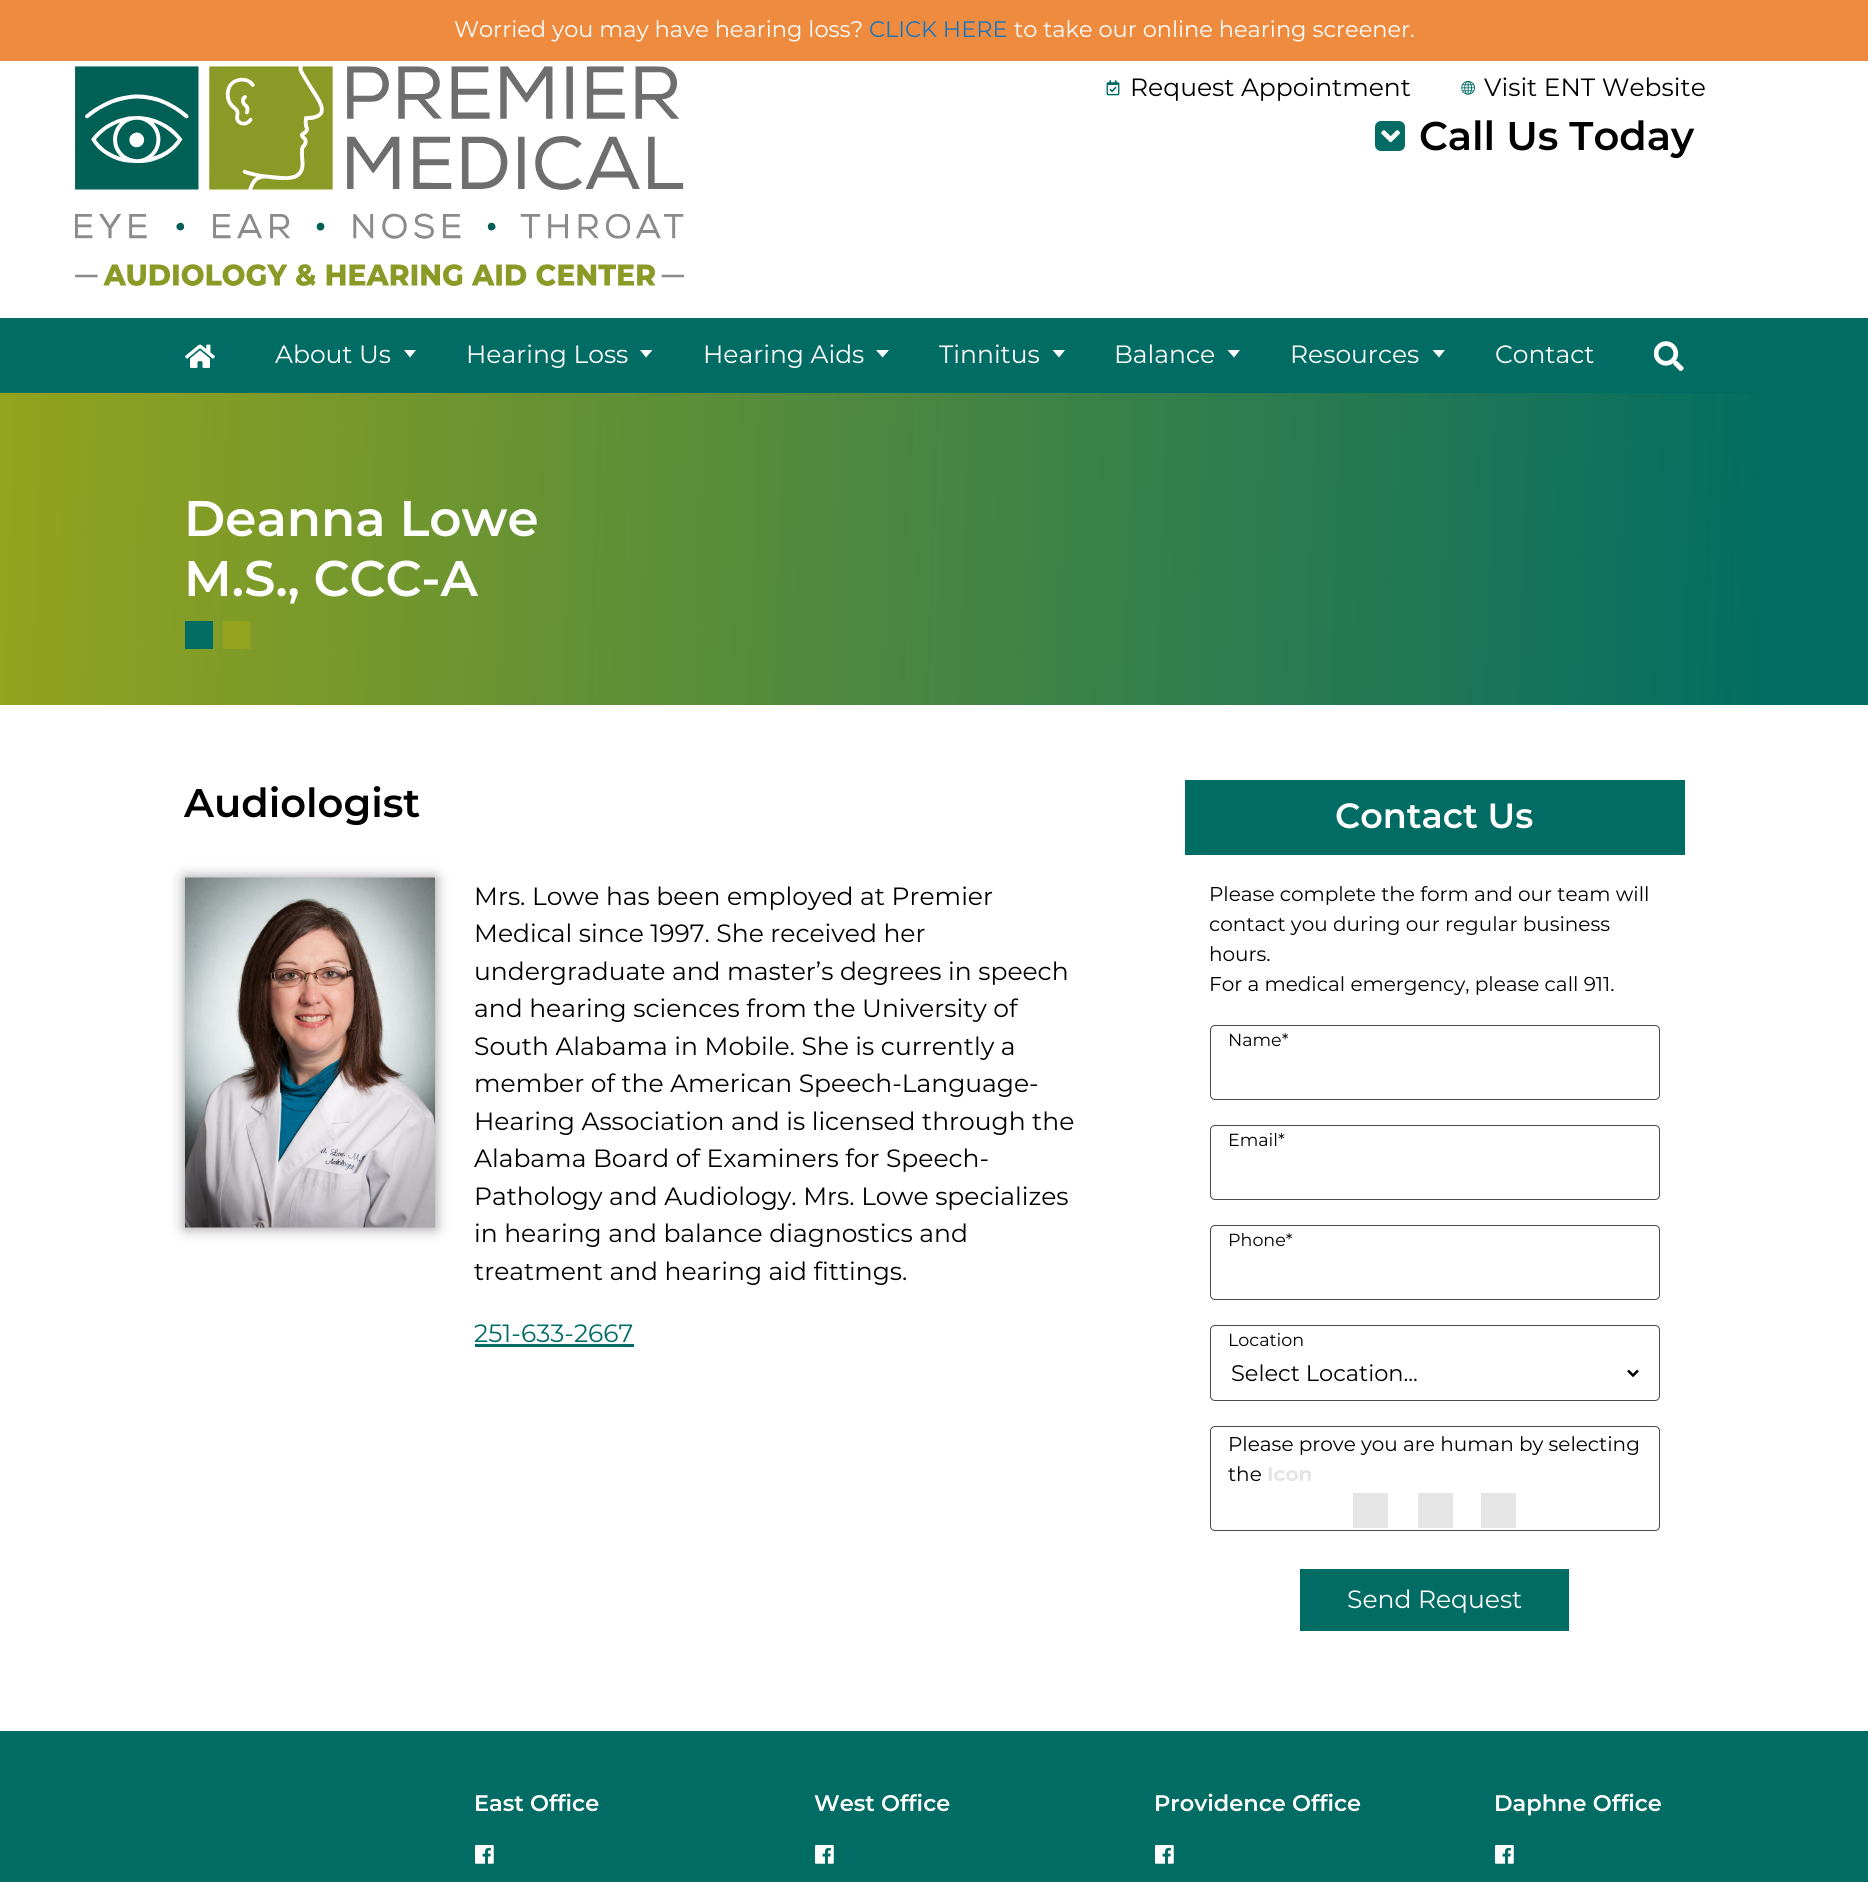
import math
import cairo

surface = cairo.ImageSurface(cairo.Format.RGB24, 1868, 1882)
ctx = cairo.Context(surface)
options = cairo.FontOptions()
options.set_hint_metrics(cairo.HintMetrics.OFF)
options.set_hint_style(cairo.HintStyle.NONE)
ctx.set_font_options(options)
ctx.set_miter_limit(4)


def ink(r, g, b):
    ctx.set_source_rgb(r / 255, g / 255, b / 255)


def write(x, y, s, family, size, color, bold=False, italic=False):
    ctx.select_font_face(family, cairo.FontSlant.ITALIC if italic else cairo.FontSlant.NORMAL, cairo.FontWeight.BOLD if bold else cairo.FontWeight.NORMAL)
    ctx.set_font_size(size)
    ink(*color)
    ctx.move_to(x, y)
    ctx.show_text(s)


def block(x, y, w, h, *color):
    ink(*color)
    ctx.rectangle(x, y, w, h)
    ctx.fill()


def round_path(x, y, w, h, r):
    ctx.new_sub_path()
    for i, (u, v) in enumerate([(x + w - r, y + h - r), (x + r, y + h - r), (x + r, y + r), (x + w - r, y + r)]):
        ctx.arc(u, v, r, i * math.pi / 2, (i + 1) * math.pi / 2)
    ctx.close_path()


def blur_box(x, y, w, h, r, blur, alpha):
    ctx.push_group_with_content(cairo.Content.ALPHA)
    ctx.set_operator(cairo.Operator.SOURCE)
    for i in range(15, -16, -2):
        e = blur * i / 6
        if min(w, h) + 2 * e > 0:
            ctx.set_source_rgba(0, 0, 0, alpha * math.erfc((i - 1) / 8.5) / 2)
            round_path(x - e, y - e, w + 2 * e, h + 2 * e, max(0, min(r + e + blur * .6, min(w, h) / 2 + e)))
            ctx.fill()
    ctx.mask(ctx.pop_group())


def paste(path, x, y, w, h):
    ctx.save()
    ctx.set_source_surface(cairo.ImageSurface.create_from_png(path), x, y)
    ctx.rectangle(x, y, w, h)
    ctx.fill()
    ctx.restore()


s1 = dict(family="Montserrat", size=22.5, color=(255, 255, 255))
s2 = dict(family="Montserrat", size=22.5, color=(28, 117, 188))
s3 = dict(family="Montserrat", size=25, color=(0, 0, 0))
s4 = dict(family="Montserrat SemiBold", size=40, color=(0, 0, 0))
s5 = dict(family="Montserrat", size=25, color=(255, 255, 255))
s6 = dict(family="Montserrat SemiBold", size=50, color=(255, 255, 255))
s7 = dict(family="Montserrat", size=25, color=(1, 108, 100))
s8 = dict(family="Montserrat SemiBold", size=35, color=(255, 255, 255))
s9 = dict(family="Montserrat", size=20, color=(0, 0, 0))
s10 = dict(family="Montserrat", size=17.5, color=(0, 0, 0))
s11 = dict(family="Montserrat", size=22.5, color=(0, 0, 0))
s12 = dict(family="Montserrat", size=20, color=(229, 229, 229), bold=True)
s13 = dict(family="Montserrat SemiBold", size=22.5, color=(255, 255, 255))

ink(255, 255, 255)
ctx.paint()
block(0, 0, 1868, 61, 238, 139, 63)
write(454, 37, "Worried you may have hearing loss?", **s1)
write(869, 37, "CLICK HERE", **s2)
write(1014, 37, "to take our online hearing screener.", **s1)
paste("pic1.png", 75, 66, 610, 220)
paste("pic2.png", 1106, 80, 14, 16)
write(1130, 96, "Request Appointment", **s3)
paste("pic3.png", 1461, 80, 14, 15)
write(1484, 96, "Visit ENT Website", **s3)
ink(1, 108, 100)
round_path(1375, 121, 30, 30, 6)
ctx.fill()
paste("pic4.png", 1381, 130, 19, 13)
write(1419, 150, "Call Us Today", **s4)
block(0, 318, 1868, 75, 1, 108, 100)
paste("pic5.png", 185, 344, 30, 24)
write(275, 363, "About Us", **s5)
ctx.new_path()
ctx.move_to(404, 350)
ctx.line_to(416, 350)
ctx.line_to(410, 357.5)
ctx.close_path()
ctx.fill()
write(466, 363, "Hearing Loss", **s5)
ctx.new_path()
ctx.move_to(640, 350)
ctx.line_to(652.5, 350)
ctx.line_to(646, 357.5)
ctx.close_path()
ctx.fill()
write(703, 363, "Hearing Aids", **s5)
ctx.new_path()
ctx.move_to(876, 350)
ctx.line_to(889, 350)
ctx.line_to(882.5, 357.5)
ctx.close_path()
ctx.fill()
write(939, 363, "Tinnitus", **s5)
ctx.new_path()
ctx.move_to(1052.5, 350)
ctx.line_to(1065, 350)
ctx.line_to(1059, 357.5)
ctx.close_path()
ctx.fill()
write(1114, 363, "Balance", **s5)
ctx.new_path()
ctx.move_to(1227.5, 350)
ctx.line_to(1240, 350)
ctx.line_to(1234, 357.5)
ctx.close_path()
ctx.fill()
write(1290, 363, "Resources", **s5)
ctx.new_path()
ctx.move_to(1432.5, 350)
ctx.line_to(1445, 350)
ctx.line_to(1439, 357.5)
ctx.close_path()
ctx.fill()
write(1495, 363, "Contact", **s5)
paste("pic6.png", 1654, 341, 30, 30)
gradient = cairo.LinearGradient(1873, 582, -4.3, 516)
gradient.add_color_stop_rgba(0.04, 0.004, 0.424, 0.392, 1)
gradient.add_color_stop_rgba(1, 0.576, 0.639, 0.118, 1)
ctx.set_source(gradient)
ctx.rectangle(0, 393, 1868, 312)
ctx.fill()
write(184, 536, "Deanna Lowe", **s6)
write(184, 596, "M.S., CCC-A", **s6)
block(185, 621, 28, 28, 1, 108, 100)
block(223, 621, 27, 28, 147, 163, 30)
write(184, 817, "Audiologist", **s4)
ink(147, 147, 147)
blur_box(185, 878, 250, 350, 0, 7, 1)
paste("pic7.png", 185, 877, 250, 351)
write(474, 905, "Mrs. Lowe has been employed at Premier", **s3)
write(474, 942, "Medical since 1997. She received her", **s3)
write(474, 980, "undergraduate and master’s degrees in speech", **s3)
write(474, 1017, "and hearing sciences from the University of", **s3)
write(474, 1055, "South Alabama in Mobile. She is currently a", **s3)
write(474, 1092, "member of the American Speech-Language-", **s3)
write(474, 1130, "Hearing Association and is licensed through the", **s3)
write(474, 1167, "Alabama Board of Examiners for Speech-", **s3)
write(474, 1205, "Pathology and Audiology. Mrs. Lowe specializes", **s3)
write(474, 1242, "in hearing and balance diagnostics and", **s3)
write(474, 1280, "treatment and hearing aid fittings.", **s3)
write(474, 1342, "251-633-2667", **s7)
block(475, 1344, 159, 3, 1, 108, 100)
block(1185, 780, 500, 75, 1, 108, 100)
write(1335, 828, "Contact Us", **s8)
write(1209, 901, "Please complete the form and our team will", **s9)
write(1209, 931, "contact you during our regular business", **s9)
write(1209, 961, "hours.", **s9)
write(1209, 991, "For a medical emergency, please call 911.", **s9)
round_path(1210.5, 1025.5, 449, 74, 4.5)
ink(74, 74, 74)
ctx.set_line_width(1)
ctx.stroke()
write(1228, 1046, "Name*", **s10)
round_path(1210.5, 1125.5, 449, 74, 4.5)
ink(74, 74, 74)
ctx.stroke()
write(1228, 1146, "Email*", **s10)
round_path(1210.5, 1225.5, 449, 74, 4.5)
ink(74, 74, 74)
ctx.stroke()
write(1228, 1246, "Phone*", **s10)
round_path(1210.5, 1325.5, 449, 75, 4.5)
ink(74, 74, 74)
ctx.stroke()
write(1228, 1346, "Location", **s10)
ctx.new_path()
ctx.move_to(1628, 1370.5)
ctx.line_to(1633, 1375.5)
ctx.line_to(1638, 1370.5)
ctx.set_line_width(2.5)
ctx.stroke()
write(1231, 1381, "Select Location...", **s11)
round_path(1210.5, 1426.5, 449, 104, 4.5)
ink(74, 74, 74)
ctx.set_line_width(1)
ctx.stroke()
write(1228, 1451, "Please prove you are human by selecting", **s9)
write(1228, 1481, "the", **s9)
write(1267, 1481, "Icon", **s12)
block(1353, 1493, 35, 35, 229, 229, 229)
block(1418, 1493, 35, 35, 229, 229, 229)
block(1481, 1493, 35, 35, 229, 229, 229)
block(1300, 1569, 269, 62, 1, 108, 100)
write(1347, 1608, "Send Request", **s5)
block(0, 1731, 1868, 151, 1, 108, 100)
write(474, 1811, "East Office", **s13)
paste("pic8.png", 475, 1845, 19, 19)
write(814, 1811, "West Office", **s13)
paste("pic8.png", 815, 1845, 19, 19)
write(1154, 1811, "Providence Office", **s13)
paste("pic8.png", 1155, 1845, 19, 19)
write(1494, 1811, "Daphne Office", **s13)
paste("pic8.png", 1495, 1845, 19, 19)
surface.write_to_png("screenshot.png")
